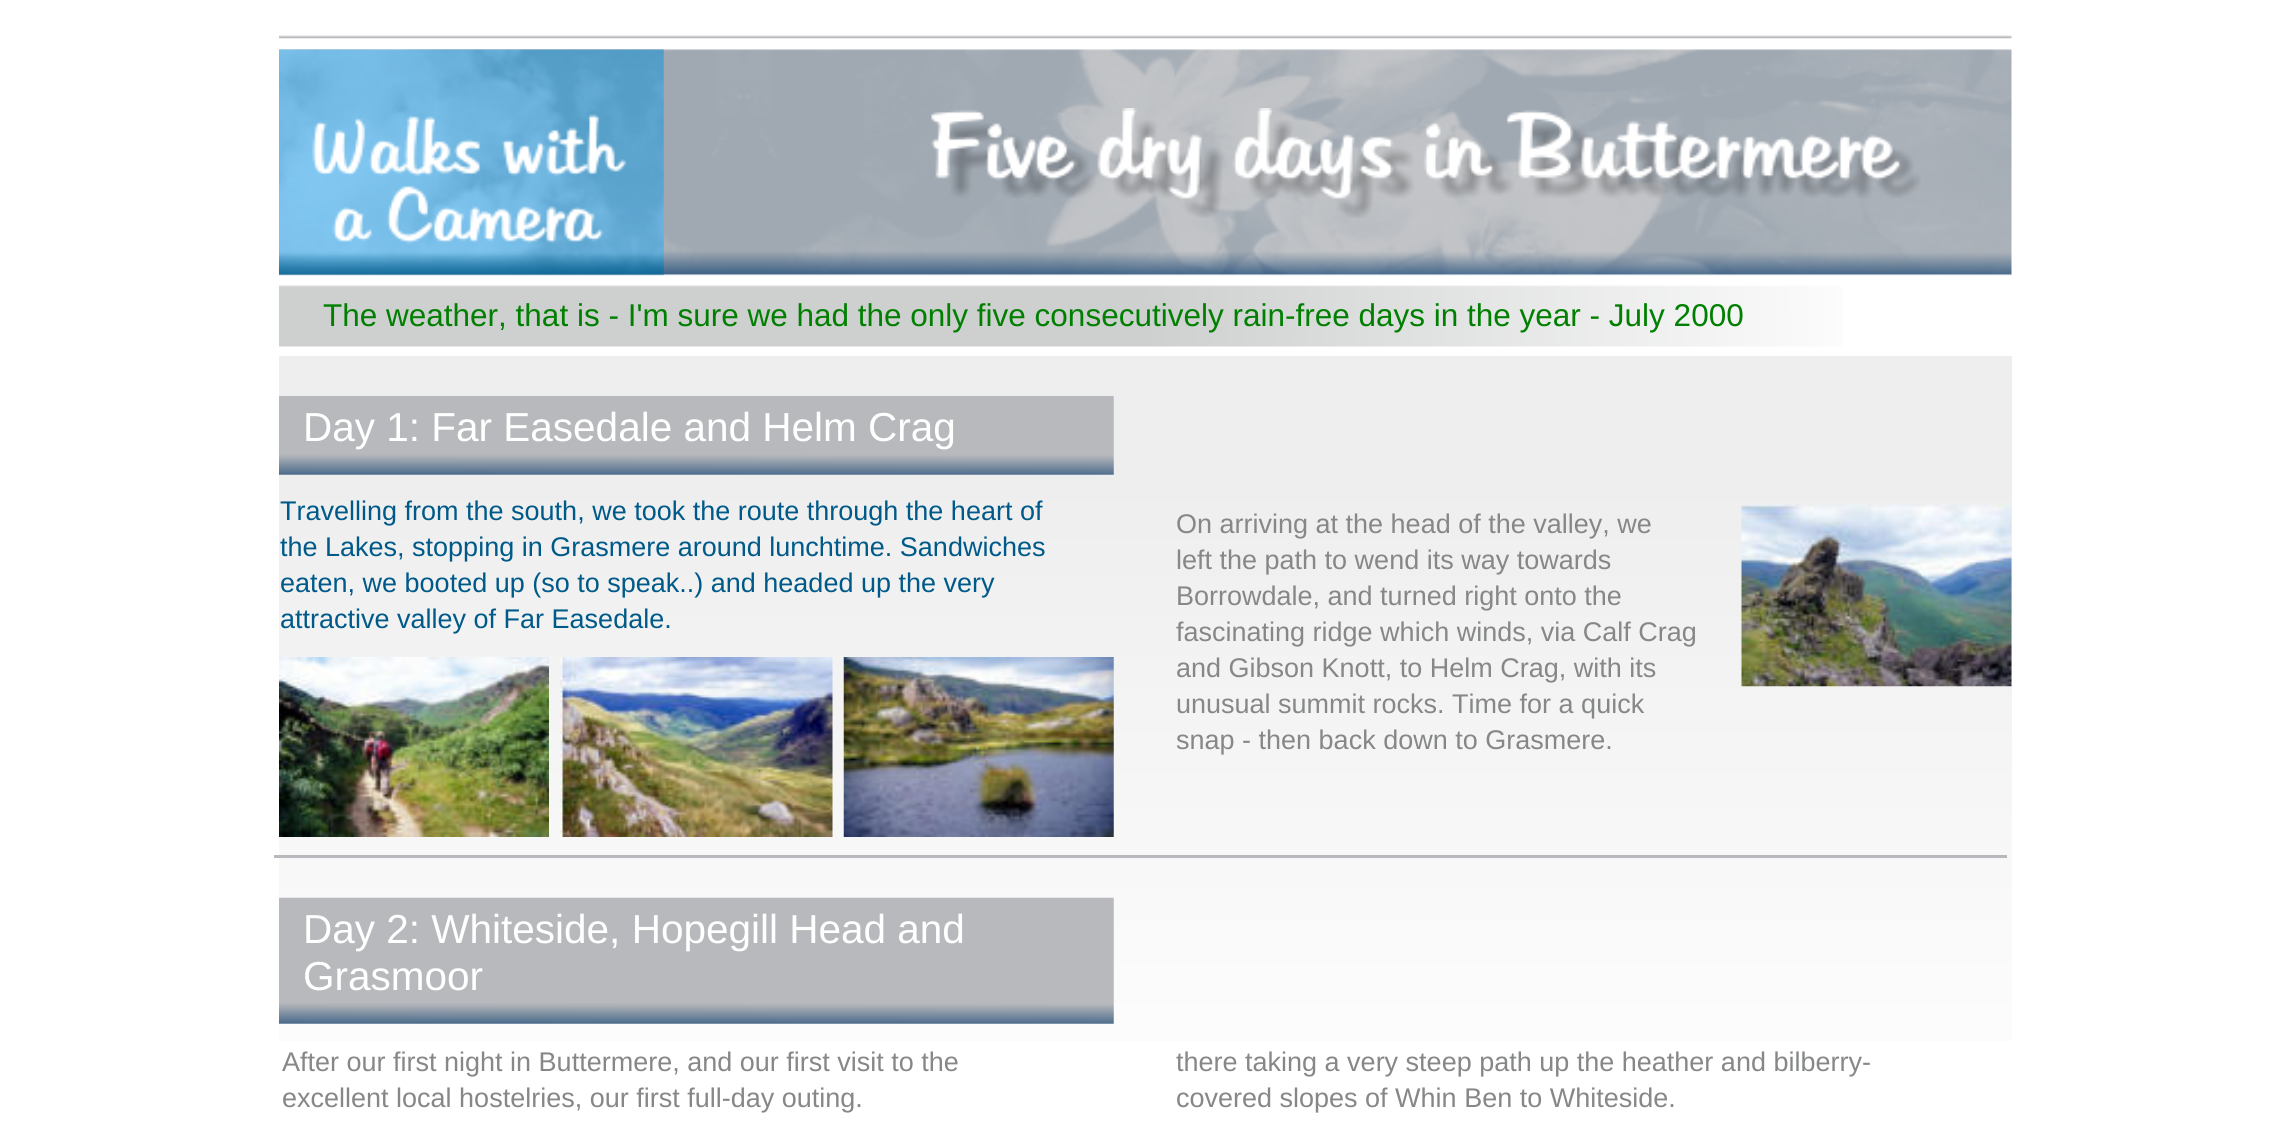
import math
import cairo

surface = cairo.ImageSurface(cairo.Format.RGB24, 2288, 1141)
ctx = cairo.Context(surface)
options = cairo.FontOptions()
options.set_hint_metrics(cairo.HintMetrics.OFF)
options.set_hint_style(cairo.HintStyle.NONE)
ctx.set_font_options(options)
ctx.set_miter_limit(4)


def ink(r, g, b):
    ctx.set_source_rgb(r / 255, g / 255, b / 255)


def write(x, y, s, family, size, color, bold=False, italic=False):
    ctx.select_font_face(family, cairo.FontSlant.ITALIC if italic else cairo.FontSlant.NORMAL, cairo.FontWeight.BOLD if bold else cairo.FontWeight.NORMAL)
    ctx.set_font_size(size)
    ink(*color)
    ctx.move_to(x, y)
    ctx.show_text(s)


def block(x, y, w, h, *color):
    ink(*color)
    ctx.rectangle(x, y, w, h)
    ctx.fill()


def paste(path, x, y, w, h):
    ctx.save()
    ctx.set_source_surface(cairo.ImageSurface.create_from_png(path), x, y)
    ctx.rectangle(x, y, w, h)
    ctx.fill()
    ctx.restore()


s1 = dict(family="Liberation Sans", size=31.5, color=(0, 127, 1))
s2 = dict(family="Liberation Sans", size=40.5, color=(255, 255, 255))
s3 = dict(family="Liberation Sans", size=27, color=(0, 90, 137))
s4 = dict(family="Liberation Sans", size=27, color=(134, 135, 135))

ink(255, 255, 255)
ctx.paint()
paste("pic1.png", 279, 35, 1733, 4)
paste("pic2.png", 279, 49, 1733, 227)
paste("pic3.png", 279, 49, 385, 227)
paste("pic4.png", 931, 108, 990, 110)
paste("pic5.png", 279, 285, 1563, 62)
write(323, 326, "The weather, that is - I'm sure we had the only five consecutively rain-free days in the year - July 2000", **s1)
gradient = cairo.LinearGradient(1145, 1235, 1145, 355)
gradient.add_color_stop_rgba(0.11, 1, 1, 1, 1)
gradient.add_color_stop_rgba(0.86, 0.933, 0.933, 0.933, 1)
ctx.set_source(gradient)
ctx.rectangle(279, 356, 1733, 685)
ctx.fill()
paste("pic6.png", 279, 396, 835, 79)
write(303, 441, "Day 1: Far Easedale and Helm Crag", **s2)
write(280, 520, "Travelling from the south, we took the route through the heart of", **s3)
write(280, 556, "the Lakes, stopping in Grasmere around lunchtime. Sandwiches", **s3)
write(280, 592, "eaten, we booted up (so to speak..) and headed up the very", **s3)
write(280, 628, "attractive valley of Far Easedale.", **s3)
write(1176, 533, "On arriving at the head of the valley, we", **s4)
write(1176, 569, "left the path to wend its way towards", **s4)
write(1176, 605, "Borrowdale, and turned right onto the", **s4)
write(1176, 641, "fascinating ridge which winds, via Calf Crag", **s4)
write(1176, 677, "and Gibson Knott, to Helm Crag, with its", **s4)
write(1176, 713, "unusual summit rocks. Time for a quick", **s4)
write(1176, 749, "snap - then back down to Grasmere.", **s4)
paste("pic7.png", 1741, 504, 271, 183)
paste("pic8.png", 279, 657, 270, 180)
paste("pic9.png", 560, 657, 273, 180)
paste("pic10.png", 843, 657, 271, 180)
block(274, 855, 1733, 3, 183, 185, 188)
paste("pic11.png", 279, 897, 835, 127)
write(303, 943, "Day 2: Whiteside, Hopegill Head and", **s2)
write(303, 990, "Grasmoor", **s2)
write(282, 1071, "After our first night in Buttermere, and our first visit to the", **s4)
write(282, 1107, "excellent local hostelries, our first full-day outing.", **s4)
write(1176, 1071, "there taking a very steep path up the heather and bilberry-", **s4)
write(1176, 1107, "covered slopes of Whin Ben to Whiteside.", **s4)
surface.write_to_png("screenshot.png")
